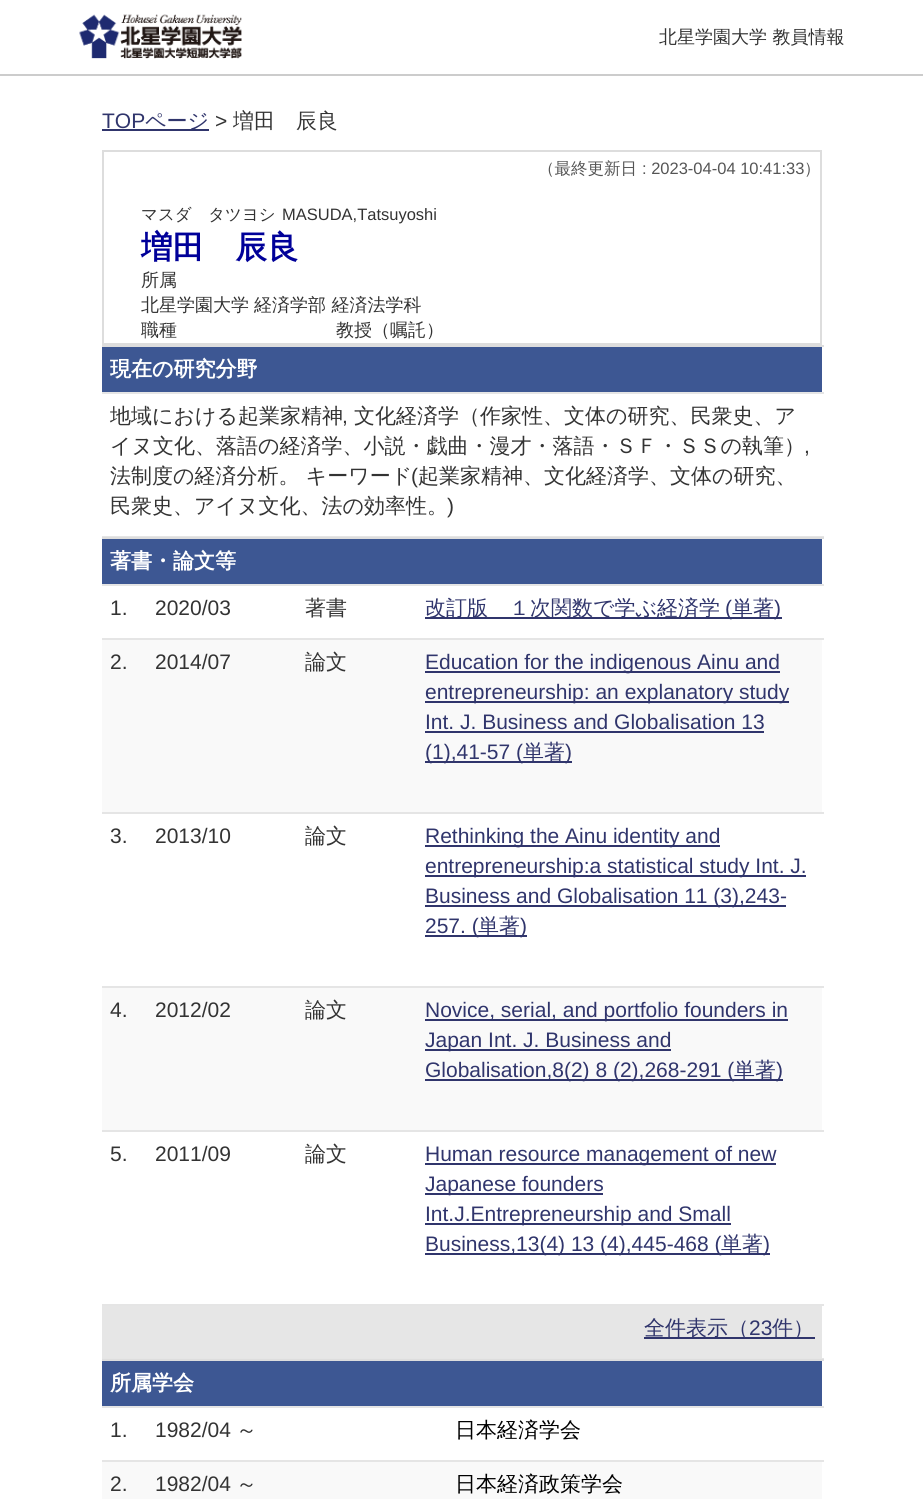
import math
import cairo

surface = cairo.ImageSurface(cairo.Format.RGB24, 923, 1499)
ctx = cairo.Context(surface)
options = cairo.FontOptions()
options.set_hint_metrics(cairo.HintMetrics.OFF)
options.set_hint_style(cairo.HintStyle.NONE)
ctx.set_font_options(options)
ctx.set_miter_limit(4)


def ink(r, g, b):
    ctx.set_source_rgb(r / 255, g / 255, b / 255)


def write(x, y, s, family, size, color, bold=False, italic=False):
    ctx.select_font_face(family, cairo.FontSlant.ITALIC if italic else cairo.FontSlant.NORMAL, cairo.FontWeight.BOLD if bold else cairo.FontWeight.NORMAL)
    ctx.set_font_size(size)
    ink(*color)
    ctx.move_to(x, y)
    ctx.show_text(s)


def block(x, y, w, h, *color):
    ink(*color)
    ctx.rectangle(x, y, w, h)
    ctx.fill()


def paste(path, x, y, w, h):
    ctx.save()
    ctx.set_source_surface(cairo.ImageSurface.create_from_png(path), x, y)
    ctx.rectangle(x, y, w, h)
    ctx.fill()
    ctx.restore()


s1 = dict(family="WenQuanYi Zen Hei Medium", size=18, color=(51, 51, 51))
s2 = dict(family="Liberation Sans", size=21, color=(48, 53, 108))
s3 = dict(family="WenQuanYi Zen Hei Medium", size=21, color=(48, 53, 108))
s4 = dict(family="Liberation Sans", size=21, color=(51, 51, 51))
s5 = dict(family="WenQuanYi Zen Hei Medium", size=21, color=(51, 51, 51))
s6 = dict(family="WenQuanYi Zen Hei Medium", size=16.5, color=(85, 85, 85))
s7 = dict(family="Liberation Sans", size=16.5, color=(85, 85, 85))
s8 = dict(family="WenQuanYi Zen Hei Medium", size=16.5, color=(51, 51, 51))
s9 = dict(family="Liberation Sans", size=16.5, color=(51, 51, 51))
s10 = dict(family="WenQuanYi Zen Hei", size=31.5, color=(0, 0, 153), bold=True)
s11 = dict(family="WenQuanYi Zen Hei", size=21, color=(255, 255, 255), bold=True)
s12 = dict(family="WenQuanYi Zen Hei Medium", size=21, color=(0, 0, 0))

ink(255, 255, 255)
ctx.paint()
block(0, 74, 923, 2, 204, 204, 204)
paste("pic1.png", 79, 14, 163, 45)
write(659, 43, "北星学園大学 教員情報", **s1)
write(102, 128, "TOP", **s2)
block(102, 129, 107, 2, 48, 53, 108)
write(145, 128, "ページ", **s3)
write(215, 128, ">", **s4)
write(233, 128, "増田　辰良", **s5)
ctx.rectangle(103, 151, 718, 193)
ink(221, 221, 221)
ctx.stroke()
write(538, 174, "（最終更新日", **s6)
write(642, 174, ": 2023-04-04 10:41:33", **s7)
write(804, 174, "）", **s6)
write(141, 220, "マスダ　タツヨシ", **s8)
write(282, 220, "MASUDA,Tatsuyoshi", **s9)
write(141, 258, "増田　辰良", **s10)
write(141, 286, "所属", **s1)
write(141, 311, "北星学園大学", **s1)
write(254, 311, "経済学部 経済法学科", **s1)
write(141, 336, "職種", **s1)
write(336, 336, "教授（嘱託）", **s1)
block(102, 347, 720, 45, 61, 87, 147)
block(102, 345, 722, 2, 221, 221, 221)
block(102, 392, 722, 2, 229, 229, 229)
write(110, 376, "現在の研究分野", **s11)
block(102, 536, 722, 1, 229, 229, 229)
write(110, 423, "地域における起業家精神", **s5)
write(342, 423, ",", **s4)
write(354, 423, "文化経済学（作家性、文体の研究、民衆史、ア", **s5)
write(110, 453, "イヌ文化、落語の経済学、小説・戯曲・漫才・落語・ＳＦ・ＳＳの執筆）", **s5)
write(804, 453, ",", **s4)
write(110, 483, "法制度の経済分析。 キーワード", **s5)
write(411, 483, "(", **s4)
write(418, 483, "起業家精神、文化経済学、文体の研究、", **s5)
write(110, 513, "民衆史、アイヌ文化、法の効率性。", **s5)
write(447, 513, ")", **s4)
block(102, 539, 720, 45, 61, 87, 147)
block(102, 537, 722, 2, 221, 221, 221)
block(102, 584, 722, 2, 229, 229, 229)
write(110, 568, "著書・論文等", **s11)
write(110, 615, "1.", **s4)
write(155, 615, "2020/03", **s4)
write(305, 615, "著書", **s5)
block(102, 638, 722, 2, 229, 229, 229)
block(425, 617, 357, 2, 48, 53, 108)
write(425, 615, "改訂版　１次関数で学ぶ経済学", **s3)
write(725, 615, "(", **s2)
write(732, 615, "単著", **s3)
write(774, 615, ")", **s2)
block(102, 640, 720, 172, 249, 249, 249)
write(110, 669, "2.", **s4)
write(155, 669, "2014/07", **s4)
write(305, 669, "論文", **s5)
block(102, 812, 722, 2, 229, 229, 229)
block(425, 671, 355, 2, 48, 53, 108)
write(425, 669, "Education for the indigenous Ainu and", **s2)
block(425, 701, 364, 2, 48, 53, 108)
write(425, 699, "entrepreneurship: an explanatory study", **s2)
write(425, 729, "Int. J. Business and Globalisation 13", **s2)
block(425, 731, 339, 2, 48, 53, 108)
block(425, 761, 147, 2, 48, 53, 108)
write(425, 759, "(1),41-57 (", **s2)
write(523, 759, "単著", **s3)
write(565, 759, ")", **s2)
write(110, 843, "3.", **s4)
write(155, 843, "2013/10", **s4)
write(305, 843, "論文", **s5)
block(102, 986, 722, 2, 229, 229, 229)
block(425, 845, 295, 2, 48, 53, 108)
write(425, 843, "Rethinking the Ainu identity and", **s2)
block(425, 875, 381, 2, 48, 53, 108)
write(425, 873, "entrepreneurship:a statistical study Int. J.", **s2)
block(425, 905, 361, 2, 48, 53, 108)
write(425, 903, "Business and Globalisation 11 (3),243-", **s2)
block(425, 935, 102, 2, 48, 53, 108)
write(425, 933, "257. (", **s2)
write(478, 933, "単著", **s3)
write(520, 933, ")", **s2)
block(102, 988, 720, 142, 249, 249, 249)
write(110, 1017, "4.", **s4)
write(155, 1017, "2012/02", **s4)
write(305, 1017, "論文", **s5)
block(102, 1130, 722, 2, 229, 229, 229)
block(425, 1019, 363, 2, 48, 53, 108)
write(425, 1017, "Novice, serial, and portfolio founders in", **s2)
block(425, 1049, 246, 2, 48, 53, 108)
write(425, 1047, "Japan Int. J. Business and", **s2)
block(425, 1079, 358, 2, 48, 53, 108)
write(425, 1077, "Globalisation,8(2) 8 (2),268-291 (", **s2)
write(734, 1077, "単著", **s3)
write(776, 1077, ")", **s2)
write(110, 1161, "5.", **s4)
write(155, 1161, "2011/09", **s4)
write(305, 1161, "論文", **s5)
block(102, 1304, 722, 2, 229, 229, 229)
block(425, 1163, 351, 2, 48, 53, 108)
write(425, 1161, "Human resource management of new", **s2)
block(425, 1193, 178, 2, 48, 53, 108)
write(425, 1191, "Japanese founders", **s2)
block(425, 1223, 306, 2, 48, 53, 108)
write(425, 1221, "Int.J.Entrepreneurship and Small", **s2)
block(425, 1253, 345, 2, 48, 53, 108)
write(425, 1251, "Business,13(4) 13 (4),445-468 (", **s2)
write(721, 1251, "単著", **s3)
write(763, 1251, ")", **s2)
block(102, 1306, 720, 52, 230, 230, 230)
block(102, 1358, 722, 1, 229, 229, 229)
block(644, 1337, 171, 2, 48, 53, 108)
write(644, 1335, "全件表示（", **s3)
write(749, 1335, "23", **s2)
write(772, 1335, "件）", **s3)
block(102, 1361, 720, 45, 61, 87, 147)
block(102, 1359, 722, 2, 221, 221, 221)
block(102, 1406, 722, 2, 229, 229, 229)
write(110, 1390, "所属学会", **s11)
write(110, 1437, "1.", **s4)
write(155, 1437, "1982/04", **s4)
write(236, 1437, "～", **s5)
block(102, 1460, 722, 2, 229, 229, 229)
write(455, 1437, "日本経済学会", **s12)
block(102, 1462, 720, 37, 249, 249, 249)
write(110, 1491, "2.", **s4)
write(155, 1491, "1982/04", **s4)
write(236, 1491, "～", **s5)
write(455, 1491, "日本経済政策学会", **s12)
surface.write_to_png("screenshot.png")
